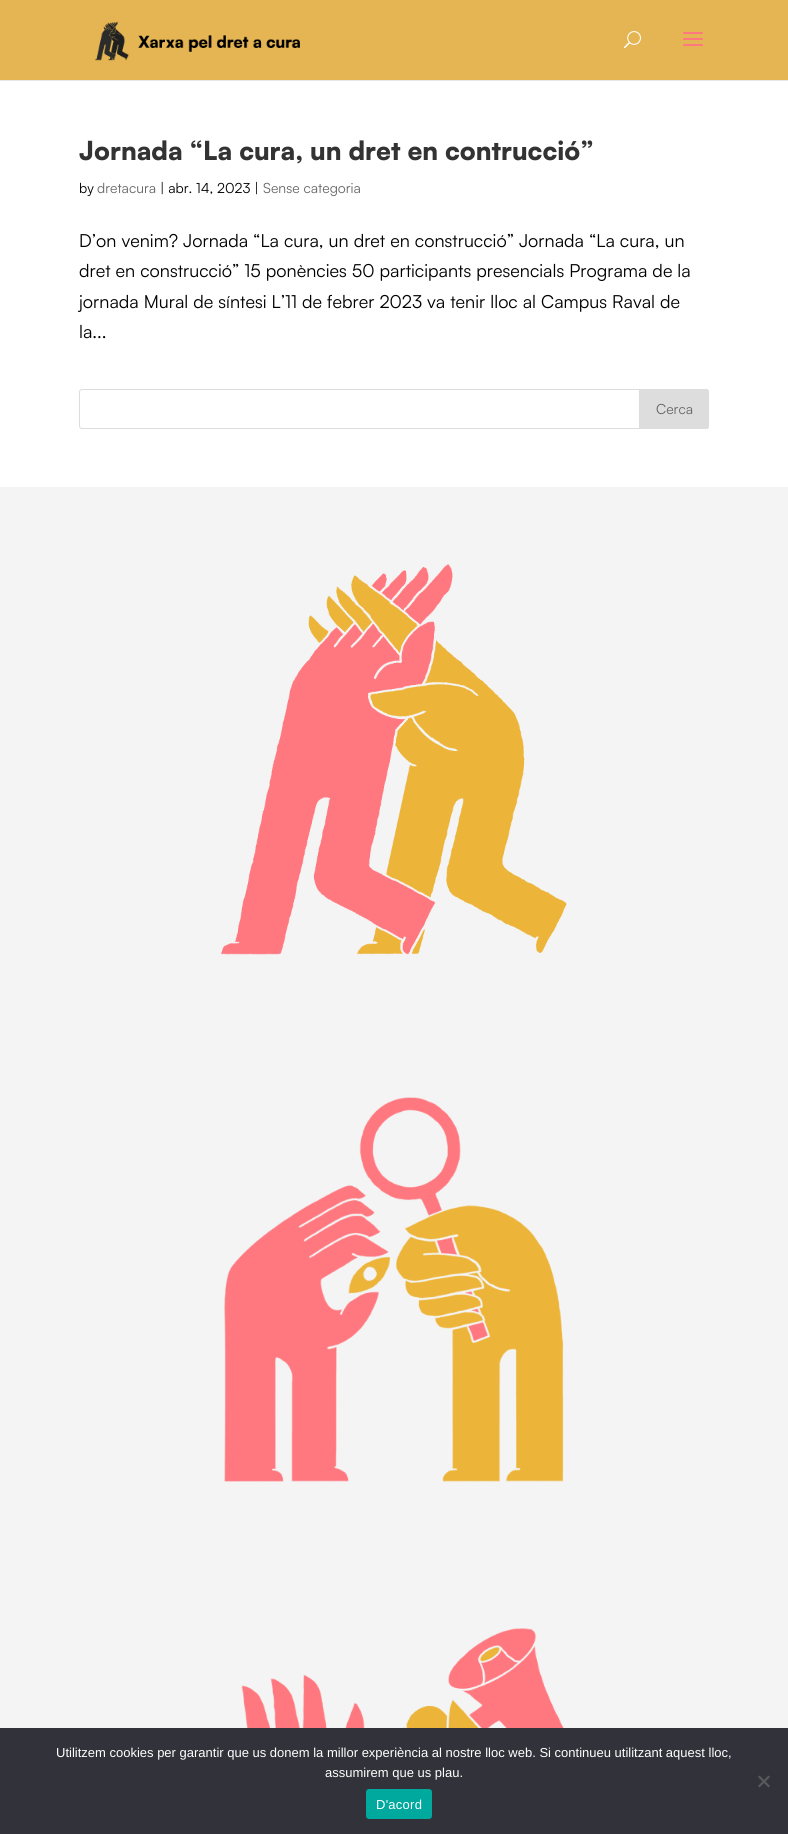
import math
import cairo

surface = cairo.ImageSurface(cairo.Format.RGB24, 788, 1834)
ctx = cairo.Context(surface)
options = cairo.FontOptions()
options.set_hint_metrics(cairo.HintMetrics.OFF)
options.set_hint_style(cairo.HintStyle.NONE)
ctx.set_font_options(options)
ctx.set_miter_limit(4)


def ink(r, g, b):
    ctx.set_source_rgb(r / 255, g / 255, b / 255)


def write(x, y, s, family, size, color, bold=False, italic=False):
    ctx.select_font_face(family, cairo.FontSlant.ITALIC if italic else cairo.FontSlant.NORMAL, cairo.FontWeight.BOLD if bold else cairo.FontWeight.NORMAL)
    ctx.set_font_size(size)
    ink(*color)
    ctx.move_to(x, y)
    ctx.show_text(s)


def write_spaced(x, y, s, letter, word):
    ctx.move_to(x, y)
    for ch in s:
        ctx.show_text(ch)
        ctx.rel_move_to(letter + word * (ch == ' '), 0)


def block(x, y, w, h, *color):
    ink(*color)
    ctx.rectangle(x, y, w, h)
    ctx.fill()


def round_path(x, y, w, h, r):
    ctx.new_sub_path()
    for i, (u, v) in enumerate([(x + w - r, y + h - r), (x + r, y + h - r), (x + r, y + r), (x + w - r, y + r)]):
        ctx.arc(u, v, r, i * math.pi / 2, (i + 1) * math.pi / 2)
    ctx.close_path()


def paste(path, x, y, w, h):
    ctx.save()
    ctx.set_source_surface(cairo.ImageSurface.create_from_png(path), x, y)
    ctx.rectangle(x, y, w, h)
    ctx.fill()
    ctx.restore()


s1 = dict(family="Satoshi Black", size=26, color=(51, 51, 51))
s2 = dict(family="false", size=14, color=(0, 0, 0))
s3 = dict(family="false", size=14, color=(102, 102, 102))
s4 = dict(family="false", size=18, color=(0, 0, 0))
s5 = dict(family="Liberation Sans", size=13, color=(255, 255, 255))

ink(255, 255, 255)
ctx.paint()
block(0, 80, 788, 1, 230, 230, 230)
block(0, 0, 788, 80, 228, 181, 82)
paste("pic1.png", 95, 21, 205, 40)
paste("pic2.png", 624, 31, 17, 18)
paste("pic3.png", 683, 32, 20, 14)
write(79, 160, "Jornada “La cura, un dret en contrucció”", **s1)
write(79, 193, "by", **s2)
write(97, 193, "dretacura", **s3)
write(160, 193, "| abr. 14, 2023 |", **s2)
write(263, 193, "Sense categoria", **s3)
write(79, 247, "D’on venim? Jornada “La cura, un dret en construcció” Jornada “La cura, un", **s4)
write(79, 277, "dret en construcció” 15 ponències 50 participants presencials Programa de la", **s4)
write(79, 308, "jornada Mural de síntesi L’11 de febrer 2023 va tenir lloc al Campus Raval de", **s4)
write(79, 338, "la...", **s4)
round_path(79.5, 389.5, 629, 39, 2.5)
ink(221, 221, 221)
ctx.set_line_width(1)
ctx.stroke()
ctx.new_path()
ctx.move_to(639.5, 389.5)
ctx.line_to(706, 389.5)
ctx.curve_to(707.5, 389.5, 708.5, 390.5, 708.5, 392)
ctx.line_to(708.5, 426)
ctx.curve_to(708.5, 427.5, 707.5, 428.5, 706, 428.5)
ctx.line_to(639.5, 428.5)
ctx.close_path()
ctx.fill_preserve()
ctx.stroke()
write(656, 414, "Cerca", **s3)
block(0, 487, 788, 1241, 244, 244, 244)
paste("pic4.png", 221, 564, 346, 391)
paste("pic5.png", 224, 1097, 340, 385)
paste("pic6.png", 241, 1628, 323, 100)
block(0, 1728, 788, 106, 50, 50, 58)
write(56, 1757, "Utilitzem cookies per garantir que us donem la millor experiència al nostre lloc web. Si continueu utilitzant aquest lloc,", **s5)
write(325, 1777, "assumirem que us plau.", **s5)
ink(89, 89, 93)
ctx.new_path()
ctx.move_to(768.5, 1775.5)
ctx.line_to(770, 1777)
ctx.line_to(759.5, 1787.5)
ctx.line_to(758, 1786)
ctx.close_path()
ctx.fill()
ctx.new_path()
ctx.move_to(758, 1777)
ctx.line_to(759.5, 1775.5)
ctx.line_to(770, 1786)
ctx.line_to(768.5, 1787.5)
ctx.close_path()
ctx.fill()
ink(0, 169, 157)
round_path(366, 1789, 66, 30, 3)
ctx.fill()
ink(255, 255, 255)
write_spaced(376, 1809, "D'acord", 0.25, 0)
surface.write_to_png("screenshot.png")
